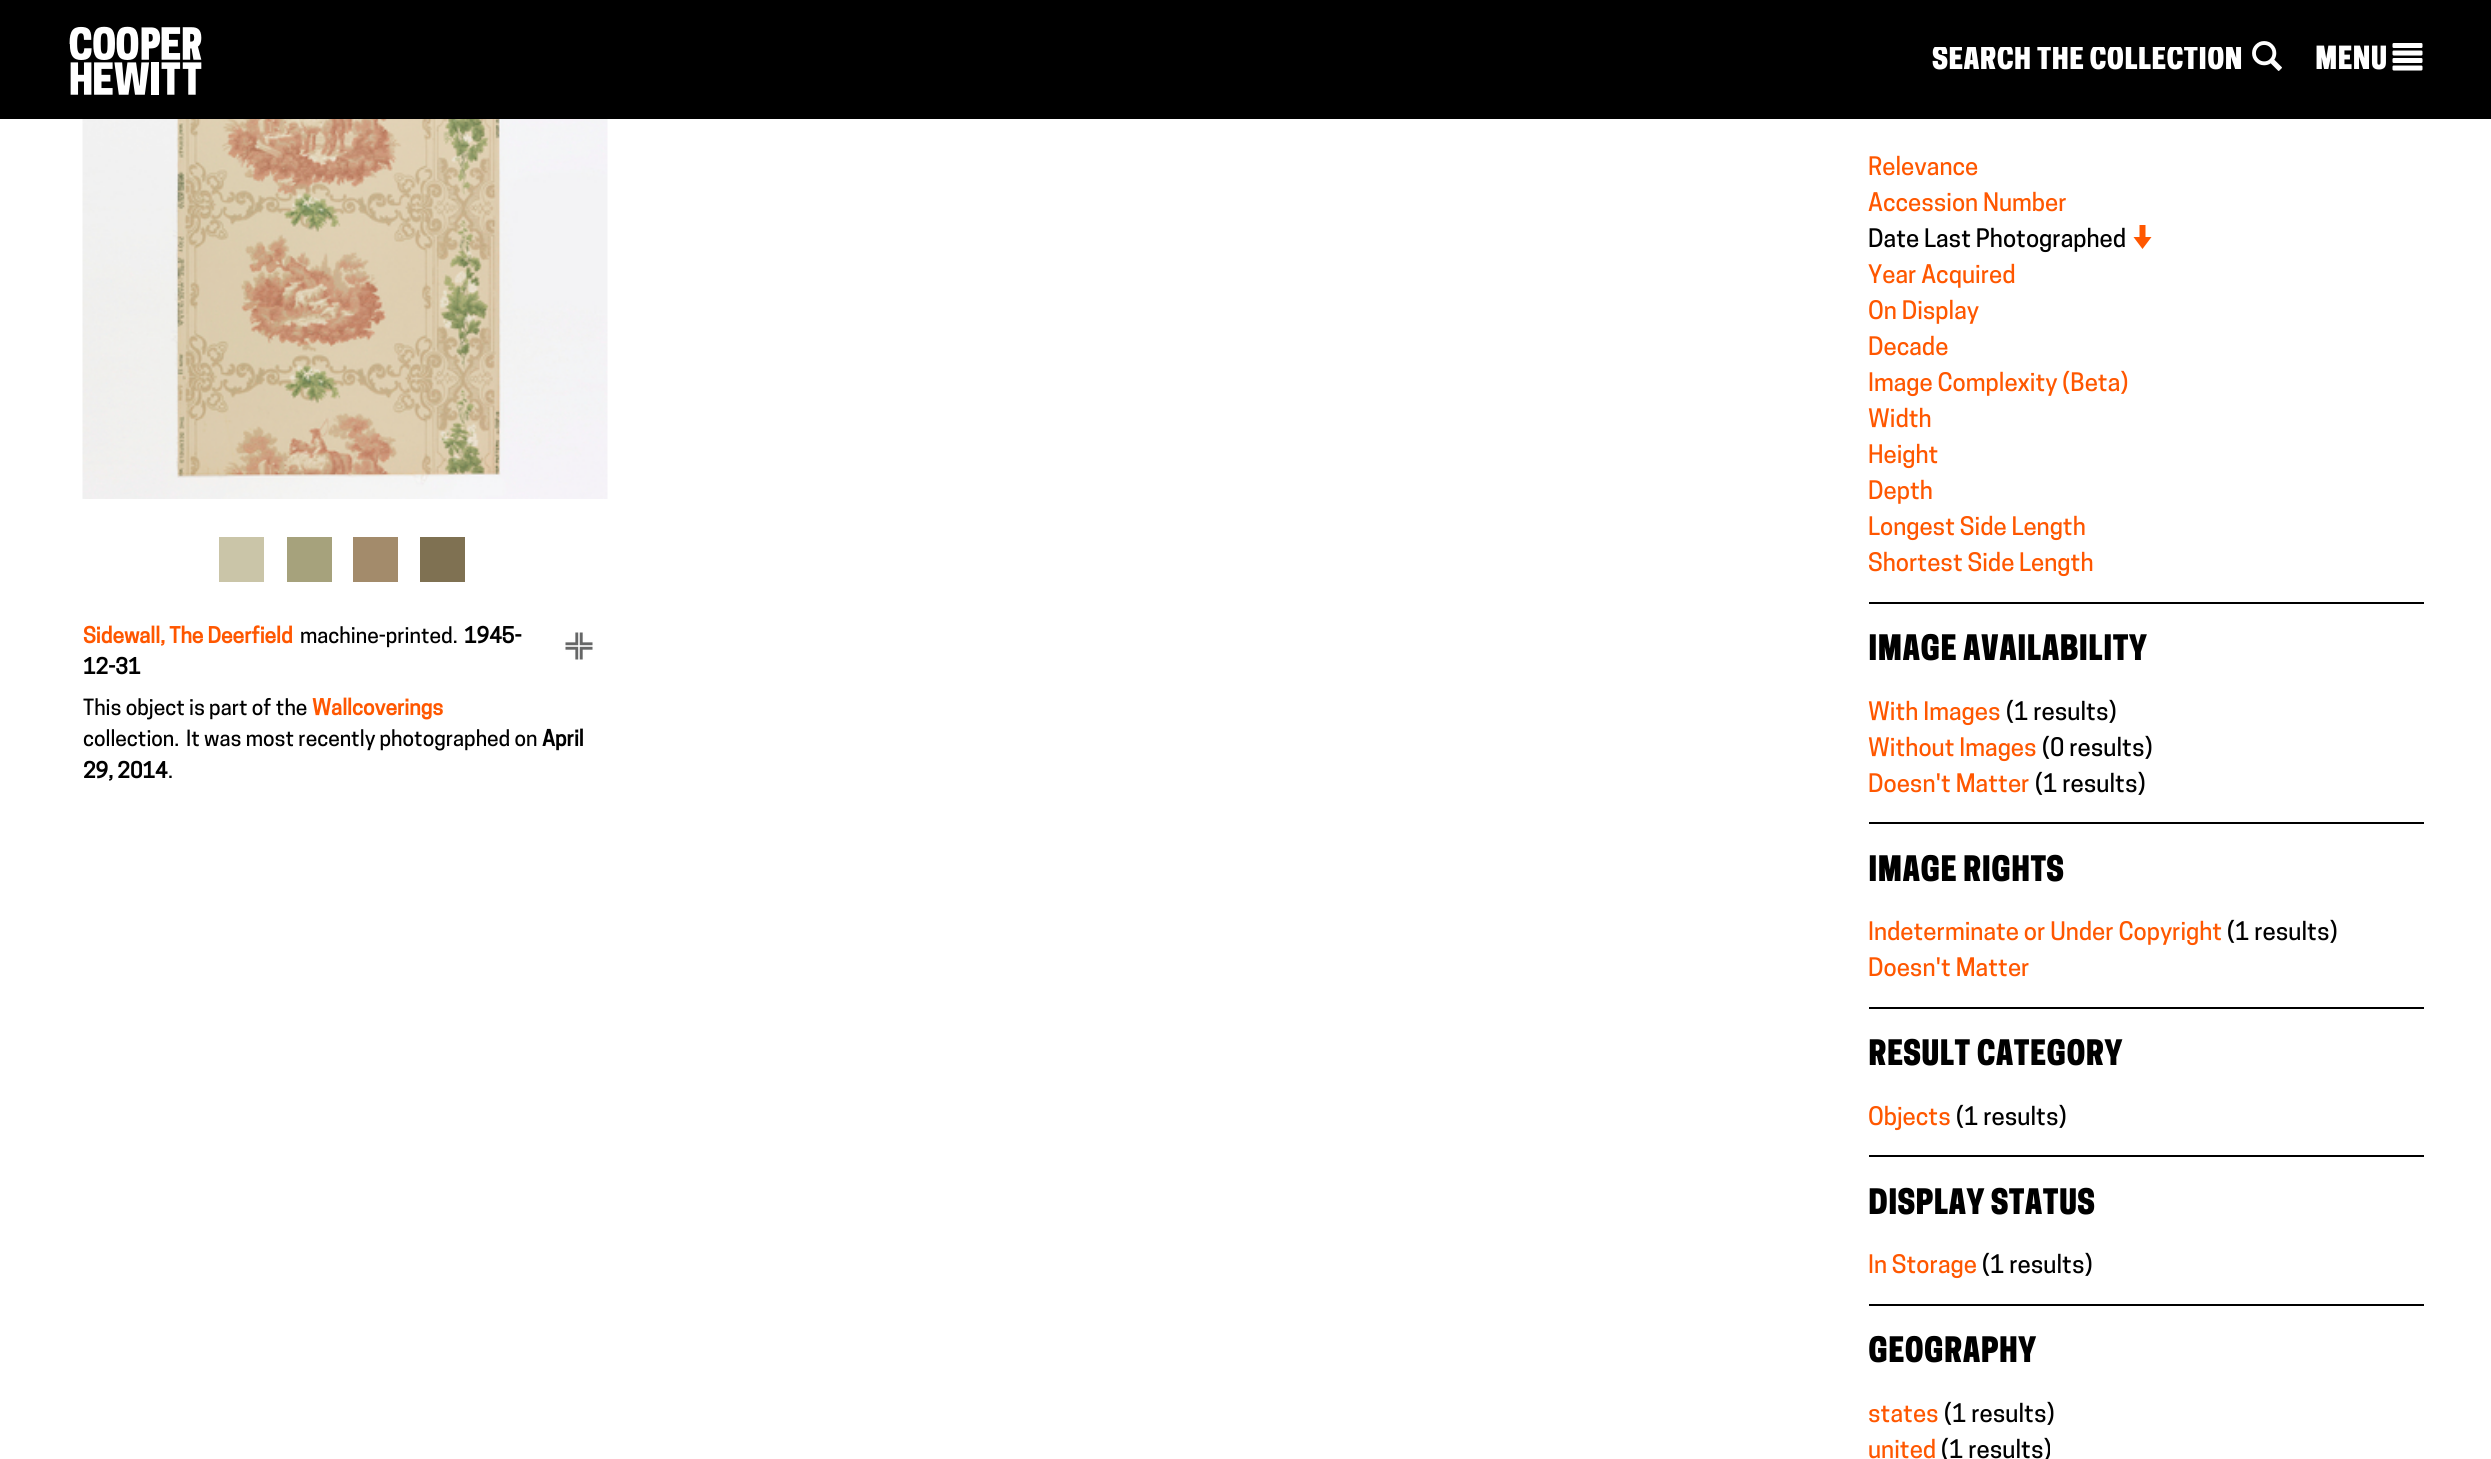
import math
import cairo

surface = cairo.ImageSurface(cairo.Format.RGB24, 2491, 1459)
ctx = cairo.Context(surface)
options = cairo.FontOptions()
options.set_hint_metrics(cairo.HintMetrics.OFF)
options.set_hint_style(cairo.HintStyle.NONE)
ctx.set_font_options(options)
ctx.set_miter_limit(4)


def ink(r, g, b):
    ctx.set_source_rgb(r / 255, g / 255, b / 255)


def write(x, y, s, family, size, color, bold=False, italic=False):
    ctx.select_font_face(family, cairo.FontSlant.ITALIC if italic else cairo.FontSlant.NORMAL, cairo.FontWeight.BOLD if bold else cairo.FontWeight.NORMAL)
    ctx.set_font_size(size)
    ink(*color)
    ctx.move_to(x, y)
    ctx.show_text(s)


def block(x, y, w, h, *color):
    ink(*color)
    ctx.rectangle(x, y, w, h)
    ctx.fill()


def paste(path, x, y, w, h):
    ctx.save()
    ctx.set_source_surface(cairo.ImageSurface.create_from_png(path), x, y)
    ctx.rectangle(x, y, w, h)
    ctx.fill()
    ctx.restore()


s1 = dict(family="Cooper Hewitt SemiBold", size=30, color=(255, 255, 255))
s2 = dict(family="Cooper Hewitt", size=21, color=(255, 87, 0), bold=True)
s3 = dict(family="Cooper Hewitt Medium", size=21, color=(0, 0, 0))
s4 = dict(family="Cooper Hewitt", size=21, color=(0, 0, 0), bold=True)
s5 = dict(family="Cooper Hewitt Medium", size=24, color=(255, 87, 0))
s6 = dict(family="Cooper Hewitt Medium", size=24, color=(0, 0, 0))
s7 = dict(family="Cooper Hewitt SemiBold", size=33, color=(0, 0, 0))

ink(255, 255, 255)
ctx.paint()
block(0, 0, 2491, 119, 0, 0, 0)
paste("pic1.png", 69, 26, 133, 69)
ctx.save()
ctx.rectangle(1874, 47, 369, 30)
ctx.clip()
write(1932, 69, "SEARCH THE COLLECTION", **s1)
ctx.restore()
paste("pic2.png", 2252, 41, 30, 30)
write(2315, 69, "MENU", **s1)
paste("pic3.png", 2392, 43, 31, 28)
paste("pic4.png", 82, 119, 526, 380)
block(219, 537, 45, 45, 202, 197, 168)
block(287, 537, 45, 45, 166, 162, 124)
block(353, 537, 45, 45, 163, 139, 107)
block(420, 537, 45, 45, 127, 113, 82)
write(83, 643, "Sidewall, The Deerfield", **s2)
write(300, 643, "machine-printed.", **s3)
write(464, 643, "1945-", **s4)
write(83, 674, "12-31", **s4)
paste("pic5.png", 565, 632, 28, 28)
write(83, 715, "This object is part of the", **s3)
write(312, 715, "Wallcoverings", **s2)
write(83, 746, "collection.", **s3)
write(186, 746, "It was most recently photographed on", **s3)
write(542, 746, "April", **s4)
write(83, 778, "29, 2014", **s4)
write(168, 778, ".", **s3)
write(1868, 175, "Relevance", **s5)
write(1868, 211, "Accession Number", **s5)
write(1868, 247, "Date Last Photographed", **s6)
ink(255, 87, 0)
ctx.new_path()
ctx.move_to(2133.5, 237)
ctx.line_to(2139.5, 237)
ctx.line_to(2139.5, 225)
ctx.line_to(2145.5, 225)
ctx.line_to(2145.5, 237)
ctx.line_to(2151.5, 237)
ctx.line_to(2142.5, 249)
ctx.close_path()
ctx.fill()
write(1868, 283, "Year Acquired", **s5)
write(1868, 319, "On Display", **s5)
write(1868, 355, "Decade", **s5)
write(1868, 391, "Image Complexity (Beta)", **s5)
write(1868, 427, "Width", **s5)
write(1868, 463, "Height", **s5)
write(1868, 499, "Depth", **s5)
write(1868, 535, "Longest Side Length", **s5)
write(1868, 571, "Shortest Side Length", **s5)
block(1869, 602, 555, 2, 0, 0, 0)
write(1868, 660, "IMAGE AVAILABILITY", **s7)
write(1868, 720, "With Images", **s5)
write(2006, 720, "(1 results)", **s6)
write(1868, 756, "Without Images", **s5)
write(2042, 756, "(0 results)", **s6)
write(1868, 792, "Doesn't Matter", **s5)
write(2035, 792, "(1 results)", **s6)
block(1869, 822, 555, 2, 0, 0, 0)
write(1868, 881, "IMAGE RIGHTS", **s7)
write(1868, 940, "Indeterminate or Under Copyright", **s5)
write(2227, 940, "(1 results)", **s6)
write(1868, 976, "Doesn't Matter", **s5)
block(1869, 1007, 555, 2, 0, 0, 0)
write(1868, 1065, "RESULT CATEGORY", **s7)
write(1868, 1125, "Objects", **s5)
write(1956, 1125, "(1 results)", **s6)
block(1869, 1155, 555, 2, 0, 0, 0)
write(1868, 1214, "DISPLAY STATUS", **s7)
write(1868, 1273, "In Storage", **s5)
write(1982, 1273, "(1 results)", **s6)
block(1869, 1304, 555, 2, 0, 0, 0)
write(1868, 1362, "GEOGRAPHY", **s7)
write(1868, 1422, "states", **s5)
write(1944, 1422, "(1 results)", **s6)
write(1868, 1458, "united", **s5)
write(1941, 1458, "(1 results)", **s6)
surface.write_to_png("screenshot.png")
